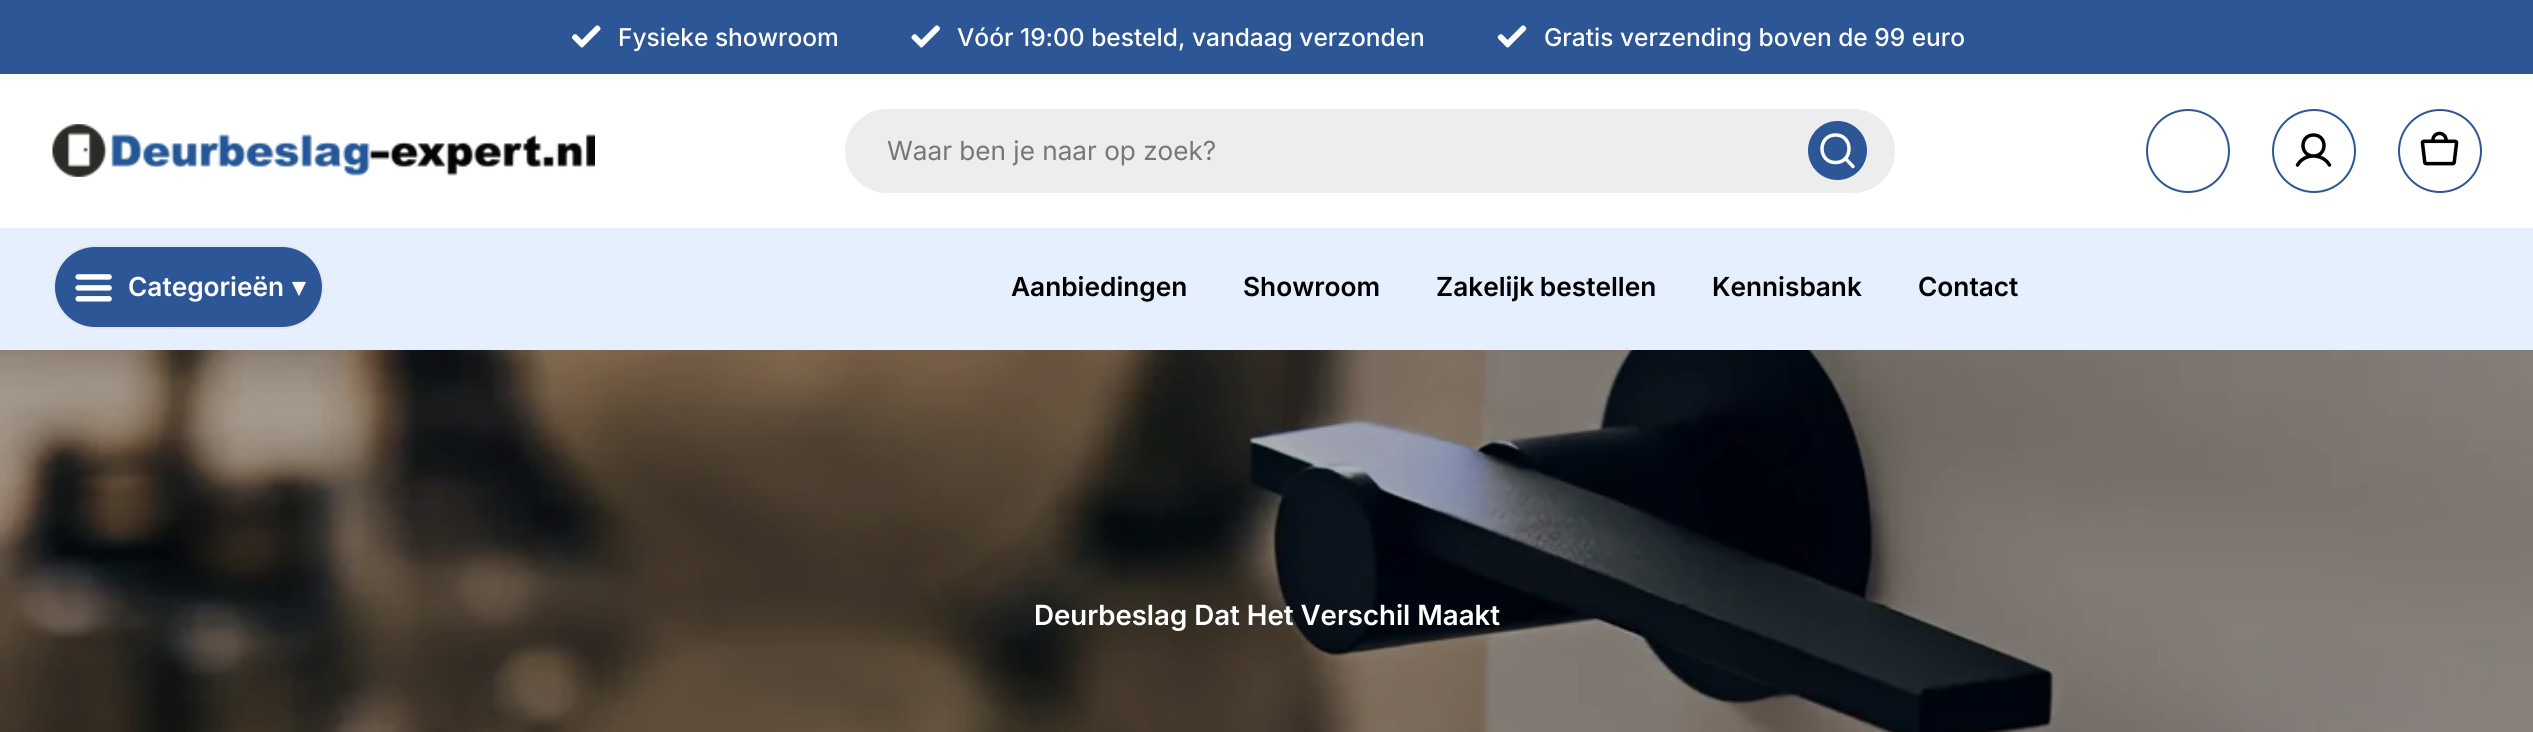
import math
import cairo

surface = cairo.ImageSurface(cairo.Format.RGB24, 2533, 732)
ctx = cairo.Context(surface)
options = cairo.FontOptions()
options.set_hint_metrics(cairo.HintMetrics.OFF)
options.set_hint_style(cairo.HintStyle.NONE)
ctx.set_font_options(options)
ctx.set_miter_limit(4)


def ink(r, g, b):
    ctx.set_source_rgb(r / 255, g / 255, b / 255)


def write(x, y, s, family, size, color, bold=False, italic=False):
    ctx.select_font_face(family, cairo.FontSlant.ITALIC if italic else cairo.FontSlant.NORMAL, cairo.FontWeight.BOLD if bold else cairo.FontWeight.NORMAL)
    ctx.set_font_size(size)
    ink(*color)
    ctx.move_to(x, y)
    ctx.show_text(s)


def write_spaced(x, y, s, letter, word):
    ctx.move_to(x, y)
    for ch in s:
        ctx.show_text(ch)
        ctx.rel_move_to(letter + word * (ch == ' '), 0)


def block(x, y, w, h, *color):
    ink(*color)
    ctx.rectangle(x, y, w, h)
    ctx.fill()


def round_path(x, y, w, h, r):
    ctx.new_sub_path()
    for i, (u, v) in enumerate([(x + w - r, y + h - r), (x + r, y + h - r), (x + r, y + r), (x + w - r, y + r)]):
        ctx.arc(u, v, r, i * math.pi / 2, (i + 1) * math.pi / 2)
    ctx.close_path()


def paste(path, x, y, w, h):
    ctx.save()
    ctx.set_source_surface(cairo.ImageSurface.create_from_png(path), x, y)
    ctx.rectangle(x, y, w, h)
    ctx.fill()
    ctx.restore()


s1 = dict(family="Inter Medium", size=24.5, color=(255, 255, 255))
s2 = dict(family="Inter", size=26.25, color=(119, 119, 119))
s3 = dict(family="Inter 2 SemiBold", size=26.25, color=(255, 255, 255))
s4 = dict(family="DejaVu Sans", size=26.25, color=(255, 255, 255), bold=True)
s5 = dict(family="Inter 2 SemiBold", size=26.25, color=(0, 0, 0))
s6 = dict(family="Inter SemiBold", size=27.8, color=(255, 255, 255))

ink(255, 255, 255)
ctx.paint()
block(0, 0, 2533, 74, 44, 86, 149)
paste("pic1.png", 572, 25, 29, 23)
write(618, 46, "Fysieke showroom", **s1)
paste("pic2.png", 911, 25, 29, 23)
write(957, 46, "Vóór 19:00 besteld, vandaag verzonden", **s1)
paste("pic3.png", 1497, 25, 30, 23)
write(1544, 46, "Gratis verzending boven de 99 euro", **s1)
paste("pic4.png", 52, 124, 543, 53)
ink(237, 237, 237)
round_path(845, 109, 1050, 84, 42)
ctx.fill()
write(887, 160, "Waar ben je naar op zoek?", **s2)
ink(44, 86, 149)
ctx.new_path()
ctx.arc(1837.5, 150.5, 29.5, 0, 2 * math.pi)
ctx.fill()
ctx.new_path()
ctx.move_to(1835.5, 162.5)
ctx.curve_to(1853.5, 162.5, 1853.5, 135, 1835.5, 135)
ctx.curve_to(1817.5, 135, 1817.5, 162.5, 1835.5, 162.5)
ctx.close_path()
ctx.move_to(1845.5, 158.5)
ctx.line_to(1853, 166.5)
ink(255, 255, 255)
ctx.set_line_width(3.5)
ctx.set_line_cap(cairo.LineCap.ROUND)
ctx.set_line_join(cairo.LineJoin.ROUND)
ctx.stroke()
ctx.arc(2188, 151, 41, 0, 2 * math.pi)
ink(44, 86, 149)
ctx.set_line_width(2)
ctx.set_line_cap(cairo.LineCap.BUTT)
ctx.set_line_join(cairo.LineJoin.MITER)
ctx.stroke()
ctx.arc(2314, 151, 41, 0, 2 * math.pi)
ctx.stroke()
ctx.new_path()
ctx.move_to(2313.5, 156)
ctx.curve_to(2327.5, 156, 2327.5, 135, 2313.5, 135)
ctx.curve_to(2299.5, 135, 2299.5, 156, 2313.5, 156)
ctx.close_path()
ctx.move_to(2297.5, 165)
ctx.curve_to(2304.5, 153, 2322.5, 153, 2329.5, 165)
ink(0, 0, 0)
ctx.set_line_width(3.5)
ctx.set_line_cap(cairo.LineCap.ROUND)
ctx.set_line_join(cairo.LineJoin.ROUND)
ctx.stroke()
ctx.arc(2440, 151, 41, 0, 2 * math.pi)
ink(44, 86, 149)
ctx.set_line_width(2)
ctx.set_line_cap(cairo.LineCap.BUTT)
ctx.set_line_join(cairo.LineJoin.MITER)
ctx.stroke()
paste("pic5.png", 2420, 131, 39, 35)
block(0, 228, 2533, 122, 230, 239, 253)
ink(44, 86, 149)
round_path(54, 246, 269, 82, 41)
ctx.fill_preserve()
ink(229, 231, 235)
ctx.stroke()
paste("pic6.png", 75, 274, 37, 28)
write(128, 296, "Categorieën", **s3)
write(292, 296, "▾", **s4)
write(1011, 296, "Aanbiedingen", **s5)
write(1243, 296, "Showroom", **s5)
write_spaced(1436, 296, "Zakelijk bestellen", 0, -1)
write(1712, 296, "Kennisbank", **s5)
write(1918, 296, "Contact", **s5)
paste("pic7.png", 0, 350, 2533, 382)
write(1034, 625, "Deurbeslag Dat Het Verschil Maakt", **s6)
surface.write_to_png("screenshot.png")
